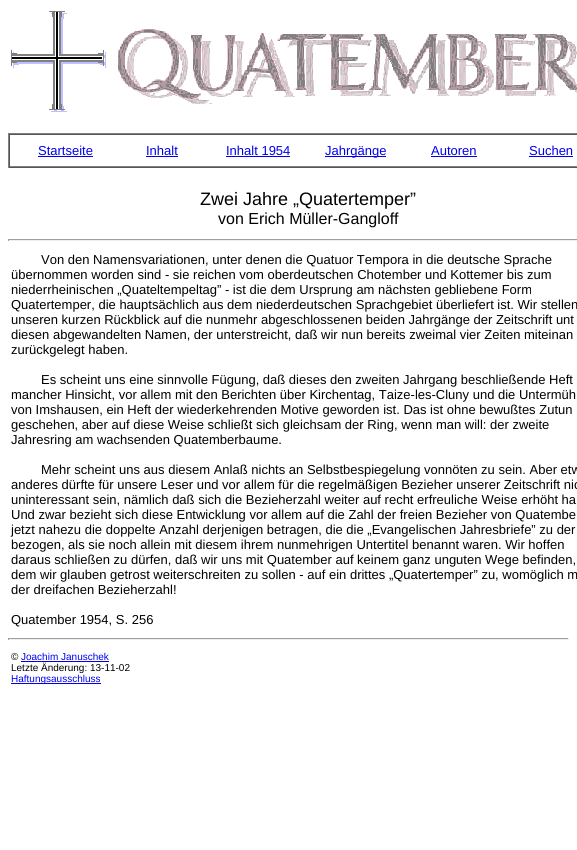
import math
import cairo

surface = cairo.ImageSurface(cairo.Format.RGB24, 577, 850)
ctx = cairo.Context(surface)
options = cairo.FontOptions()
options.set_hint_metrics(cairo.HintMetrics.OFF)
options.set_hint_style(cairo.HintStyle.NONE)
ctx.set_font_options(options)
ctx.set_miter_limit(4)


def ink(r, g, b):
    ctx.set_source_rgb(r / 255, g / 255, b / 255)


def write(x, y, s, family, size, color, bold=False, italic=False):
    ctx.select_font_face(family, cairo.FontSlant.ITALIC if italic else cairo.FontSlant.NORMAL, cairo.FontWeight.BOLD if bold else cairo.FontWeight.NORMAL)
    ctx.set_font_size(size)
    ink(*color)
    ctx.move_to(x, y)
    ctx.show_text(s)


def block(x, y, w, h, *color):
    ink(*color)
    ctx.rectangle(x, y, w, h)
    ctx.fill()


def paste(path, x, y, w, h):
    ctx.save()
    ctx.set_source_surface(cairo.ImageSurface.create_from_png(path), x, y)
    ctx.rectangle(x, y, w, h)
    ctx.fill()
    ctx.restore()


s1 = dict(family="Liberation Sans", size=13, color=(0, 0, 238))
s2 = dict(family="Liberation Sans", size=18, color=(0, 0, 0))
s3 = dict(family="Liberation Sans", size=16, color=(0, 0, 0))
s4 = dict(family="Liberation Sans", size=13, color=(0, 0, 0))
s5 = dict(family="Liberation Sans", size=10, color=(0, 0, 0))
s6 = dict(family="Liberation Sans", size=10, color=(0, 0, 238))

ink(255, 255, 255)
ctx.paint()
paste("pic1.png", 11, 11, 95, 101)
paste("pic2.png", 118, 29, 459, 75)
block(8, 133, 569, 1, 128, 128, 128)
block(8, 167, 569, 1, 85, 85, 85)
block(8, 133, 1, 35, 128, 128, 128)
block(9, 134, 568, 1, 85, 85, 85)
block(9, 166, 568, 1, 128, 128, 128)
block(9, 134, 1, 33, 85, 85, 85)
write(38, 155, "Startseite", **s1)
block(38, 156, 55, 1, 0, 0, 238)
write(146, 155, "Inhalt", **s1)
block(146, 156, 32, 1, 0, 0, 238)
write(226, 155, "Inhalt 1954", **s1)
block(226, 156, 64, 1, 0, 0, 238)
block(325, 156, 61, 1, 0, 0, 238)
write(325, 155, "Jahrgänge", **s1)
write(431, 155, "Autoren", **s1)
block(431, 156, 46, 1, 0, 0, 238)
write(529, 155, "Suchen", **s1)
block(529, 156, 44, 1, 0, 0, 238)
write(200, 205, "Zwei Jahre „Quatertemper”", **s2)
write(218, 224, "von Erich Müller-Gangloff", **s3)
block(8, 239, 569, 1, 159, 159, 159)
block(8, 240, 569, 1, 238, 238, 238)
block(8, 239, 1, 2, 159, 159, 159)
write(41, 264, "Von den Namensvariationen, unter denen die Quatuor Tempora in die deutsche Sprache", **s4)
write(11, 279, "übernommen worden sind - sie reichen vom oberdeutschen Chotember und Kottemer bis zum", **s4)
write(11, 294, "niederrheinischen „Quateltempeltag” - ist die dem Ursprung am nächsten gebliebene Form", **s4)
write(11, 309, "Quatertemper, die hauptsächlich aus dem niederdeutschen Sprachgebiet überliefert ist. Wir stellen", **s4)
write(11, 324, "unseren kurzen Rückblick auf die nunmehr abgeschlossenen beiden Jahrgänge der Zeitschrift unt", **s4)
write(11, 339, "diesen abgewandelten Namen, der unterstreicht, daß wir nun bereits zweimal vier Zeiten miteinan", **s4)
write(11, 354, "zurückgelegt haben.", **s4)
write(41, 384, "Es scheint uns eine sinnvolle Fügung, daß dieses den zweiten Jahrgang beschließende Heft", **s4)
write(11, 399, "mancher Hinsicht, vor allem mit den Berichten über Kirchentag, Taize-les-Cluny und die Untermüh", **s4)
write(11, 414, "von Imshausen, ein Heft der wiederkehrenden Motive geworden ist. Das ist ohne bewußtes Zutun", **s4)
write(11, 429, "geschehen, aber auf diese Weise schließt sich gleichsam der Ring, wenn man will: der zweite", **s4)
write(11, 444, "Jahresring am wachsenden Quatemberbaume.", **s4)
write(41, 474, "Mehr scheint uns aus diesem Anlaß nichts an Selbstbespiegelung vonnöten zu sein. Aber etw", **s4)
write(11, 489, "anderes dürfte für unsere Leser und vor allem für die regelmäßigen Bezieher unserer Zeitschrift nic", **s4)
write(11, 504, "uninteressant sein, nämlich daß sich die Bezieherzahl weiter auf recht erfreuliche Weise erhöht ha", **s4)
write(11, 519, "Und zwar bezieht sich diese Entwicklung vor allem auf die Zahl der freien Bezieher von Quatembe", **s4)
write(11, 534, "jetzt nahezu die doppelte Anzahl derjenigen betragen, die die „Evangelischen Jahresbriefe” zu der", **s4)
write(11, 549, "bezogen, als sie noch allein mit diesem ihrem nunmehrigen Untertitel benannt waren. Wir hoffen", **s4)
write(11, 564, "daraus schließen zu dürfen, daß wir uns mit Quatember auf keinem ganz unguten Wege befinden,", **s4)
write(11, 579, "dem wir glauben getrost weiterschreiten zu sollen - auf ein drittes „Quatertemper” zu, womöglich m", **s4)
write(11, 594, "der dreifachen Bezieherzahl!", **s4)
write(11, 624, "Quatember 1954, S. 256", **s4)
block(8, 638, 561, 1, 159, 159, 159)
block(568, 638, 1, 2, 238, 238, 238)
block(8, 639, 561, 1, 238, 238, 238)
block(8, 638, 1, 2, 159, 159, 159)
write(11, 660, "©", **s5)
write(21, 660, "Joachim Januschek", **s6)
block(21, 661, 88, 1, 0, 0, 238)
write(11, 671, "Letzte Änderung: 13-11-02", **s5)
block(11, 683, 90, 1, 0, 0, 238)
write(11, 682, "Haftungsausschluss", **s6)
surface.write_to_png("screenshot.png")
